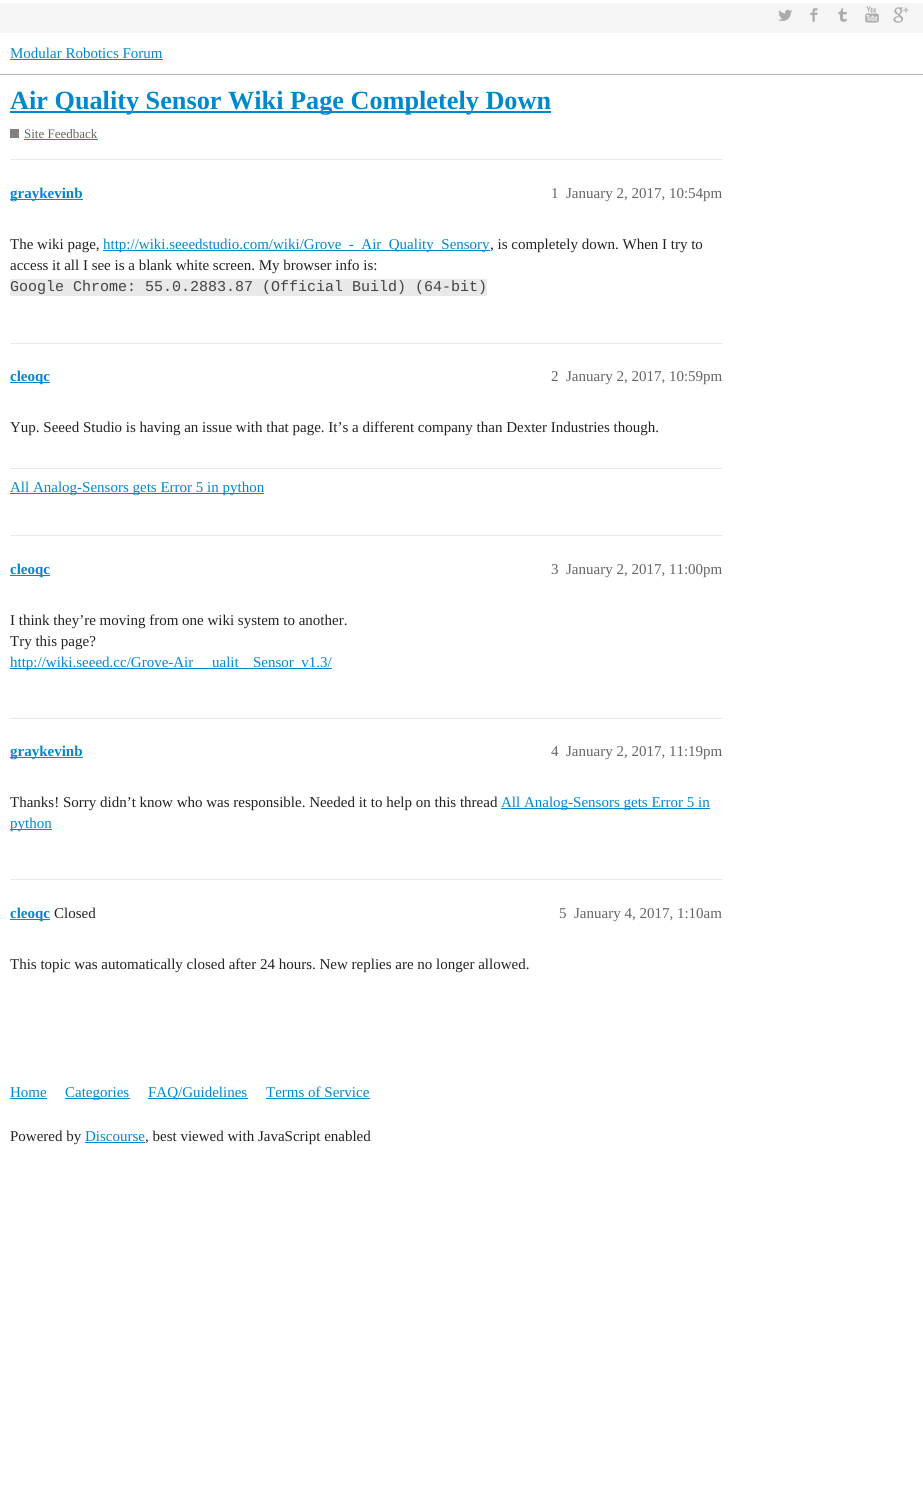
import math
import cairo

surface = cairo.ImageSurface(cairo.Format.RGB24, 923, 1494)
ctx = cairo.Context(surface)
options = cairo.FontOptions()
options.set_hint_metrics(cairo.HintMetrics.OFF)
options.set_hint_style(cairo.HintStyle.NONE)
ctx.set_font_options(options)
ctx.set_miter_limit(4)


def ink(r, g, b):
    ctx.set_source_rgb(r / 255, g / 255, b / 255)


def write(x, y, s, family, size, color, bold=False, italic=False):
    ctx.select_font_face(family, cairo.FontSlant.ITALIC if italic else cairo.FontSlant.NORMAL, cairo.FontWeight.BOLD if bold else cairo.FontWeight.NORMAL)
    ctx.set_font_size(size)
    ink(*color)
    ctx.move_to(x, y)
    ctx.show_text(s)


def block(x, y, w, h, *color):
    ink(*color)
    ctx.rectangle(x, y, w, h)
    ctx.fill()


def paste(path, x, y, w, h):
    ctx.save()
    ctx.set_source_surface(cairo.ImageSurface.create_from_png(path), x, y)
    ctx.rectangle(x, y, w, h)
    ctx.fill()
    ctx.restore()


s1 = dict(family="Liberation Serif", size=15, color=(0, 136, 204))
s2 = dict(family="Liberation Serif", size=26.25, color=(0, 136, 204), bold=True)
s3 = dict(family="Liberation Serif", size=13, color=(100, 100, 100))
s4 = dict(family="Liberation Serif", size=15, color=(0, 136, 204), bold=True)
s5 = dict(family="Liberation Serif", size=15, color=(100, 100, 100))
s6 = dict(family="Liberation Serif", size=15, color=(34, 34, 34))
s7 = dict(family="Liberation Mono", size=15, color=(67, 67, 67))

ink(255, 255, 255)
ctx.paint()
block(0, 3, 923, 30, 245, 245, 245)
paste("pic1.png", 778, 9, 14, 12)
paste("pic2.png", 810, 8, 8, 14)
paste("pic3.png", 838, 8, 9, 14)
paste("pic4.png", 865, 6, 14, 17)
paste("pic5.png", 893, 7, 16, 16)
block(0, 74, 923, 1, 175, 175, 175)
write(10, 58, "Modular Robotics Forum", **s1)
block(10, 59, 153, 1, 0, 136, 204)
block(10, 111, 541, 2, 0, 136, 204)
write(10, 109, "Air Quality Sensor Wiki Page Completely Down", **s2)
block(10, 129, 9, 9, 128, 130, 129)
write(24, 138, "Site Feedback", **s3)
block(24, 139, 74, 1, 0, 136, 204)
block(10, 159, 712, 1, 233, 233, 233)
block(10, 199, 73, 1, 0, 136, 204)
write(10, 198, "graykevinb", **s4)
write(551, 198, "1", **s5)
write(566, 198, "January 2, 2017, 10:54pm", **s5)
write(10, 249, "The wiki page,", **s6)
block(103, 250, 387, 1, 0, 136, 204)
write(103, 249, "http://wiki.seeedstudio.com/wiki/Grove_-_Air_Quality_Sensory", **s1)
write(490, 249, ", is completely down. When I try to", **s6)
write(10, 270, "access it all I see is a blank white screen. My browser info is:", **s6)
block(10, 279, 477, 17, 233, 233, 233)
write(10, 291, "Google Chrome: 55.0.2883.87 (Official Build) (64-bit)", **s7)
block(10, 343, 712, 1, 233, 233, 233)
block(10, 382, 40, 1, 0, 136, 204)
write(10, 381, "cleoqc", **s4)
write(551, 381, "2", **s5)
write(566, 381, "January 2, 2017, 10:59pm", **s5)
write(10, 432, "Yup. Seeed Studio is having an issue with that page. It’s a different company than Dexter Industries though.", **s6)
block(10, 468, 712, 1, 233, 233, 233)
block(10, 493, 254, 1, 0, 136, 204)
write(10, 492, "All Analog-Sensors gets Error 5 in python", **s1)
block(10, 535, 712, 1, 233, 233, 233)
block(10, 575, 40, 1, 0, 136, 204)
write(10, 574, "cleoqc", **s4)
write(551, 574, "3", **s5)
write(566, 574, "January 2, 2017, 11:00pm", **s5)
write(10, 625, "I think they’re moving from one wiki system to another.", **s6)
write(10, 646, "Try this page?", **s6)
block(10, 668, 322, 1, 0, 136, 204)
write(10, 667, "http://wiki.seeed.cc/Grove-Air", **s1)
write(212, 667, "ualit", **s1)
write(253, 667, "Sensor_v1.3/", **s1)
block(10, 718, 712, 1, 233, 233, 233)
block(10, 757, 73, 1, 0, 136, 204)
write(10, 756, "graykevinb", **s4)
write(551, 756, "4", **s5)
write(566, 756, "January 2, 2017, 11:19pm", **s5)
write(10, 807, "Thanks! Sorry didn’t know who was responsible. Needed it to help on this thread", **s6)
block(501, 808, 209, 1, 0, 136, 204)
write(501, 807, "All Analog-Sensors gets Error 5 in", **s1)
block(10, 829, 42, 1, 0, 136, 204)
write(10, 828, "python", **s1)
block(10, 879, 712, 1, 233, 233, 233)
block(10, 919, 40, 1, 0, 136, 204)
write(10, 918, "cleoqc", **s4)
write(54, 918, "Closed", **s6)
write(559, 918, "5", **s5)
write(574, 918, "January 4, 2017, 1:10am", **s5)
write(10, 969, "This topic was automatically closed after 24 hours. New replies are no longer allowed.", **s6)
write(10, 1097, "Home", **s1)
block(10, 1098, 37, 1, 0, 136, 204)
block(65, 1098, 65, 1, 0, 136, 204)
write(65, 1097, "Categories", **s1)
block(148, 1098, 100, 1, 0, 136, 204)
write(148, 1097, "FAQ/Guidelines", **s1)
write(266, 1097, "Terms of Service", **s1)
block(266, 1098, 104, 1, 0, 136, 204)
write(10, 1141, "Powered by", **s6)
write(85, 1141, "Discourse", **s1)
block(85, 1142, 60, 1, 0, 136, 204)
write(145, 1141, ", best viewed with JavaScript enabled", **s6)
surface.write_to_png("screenshot.png")
